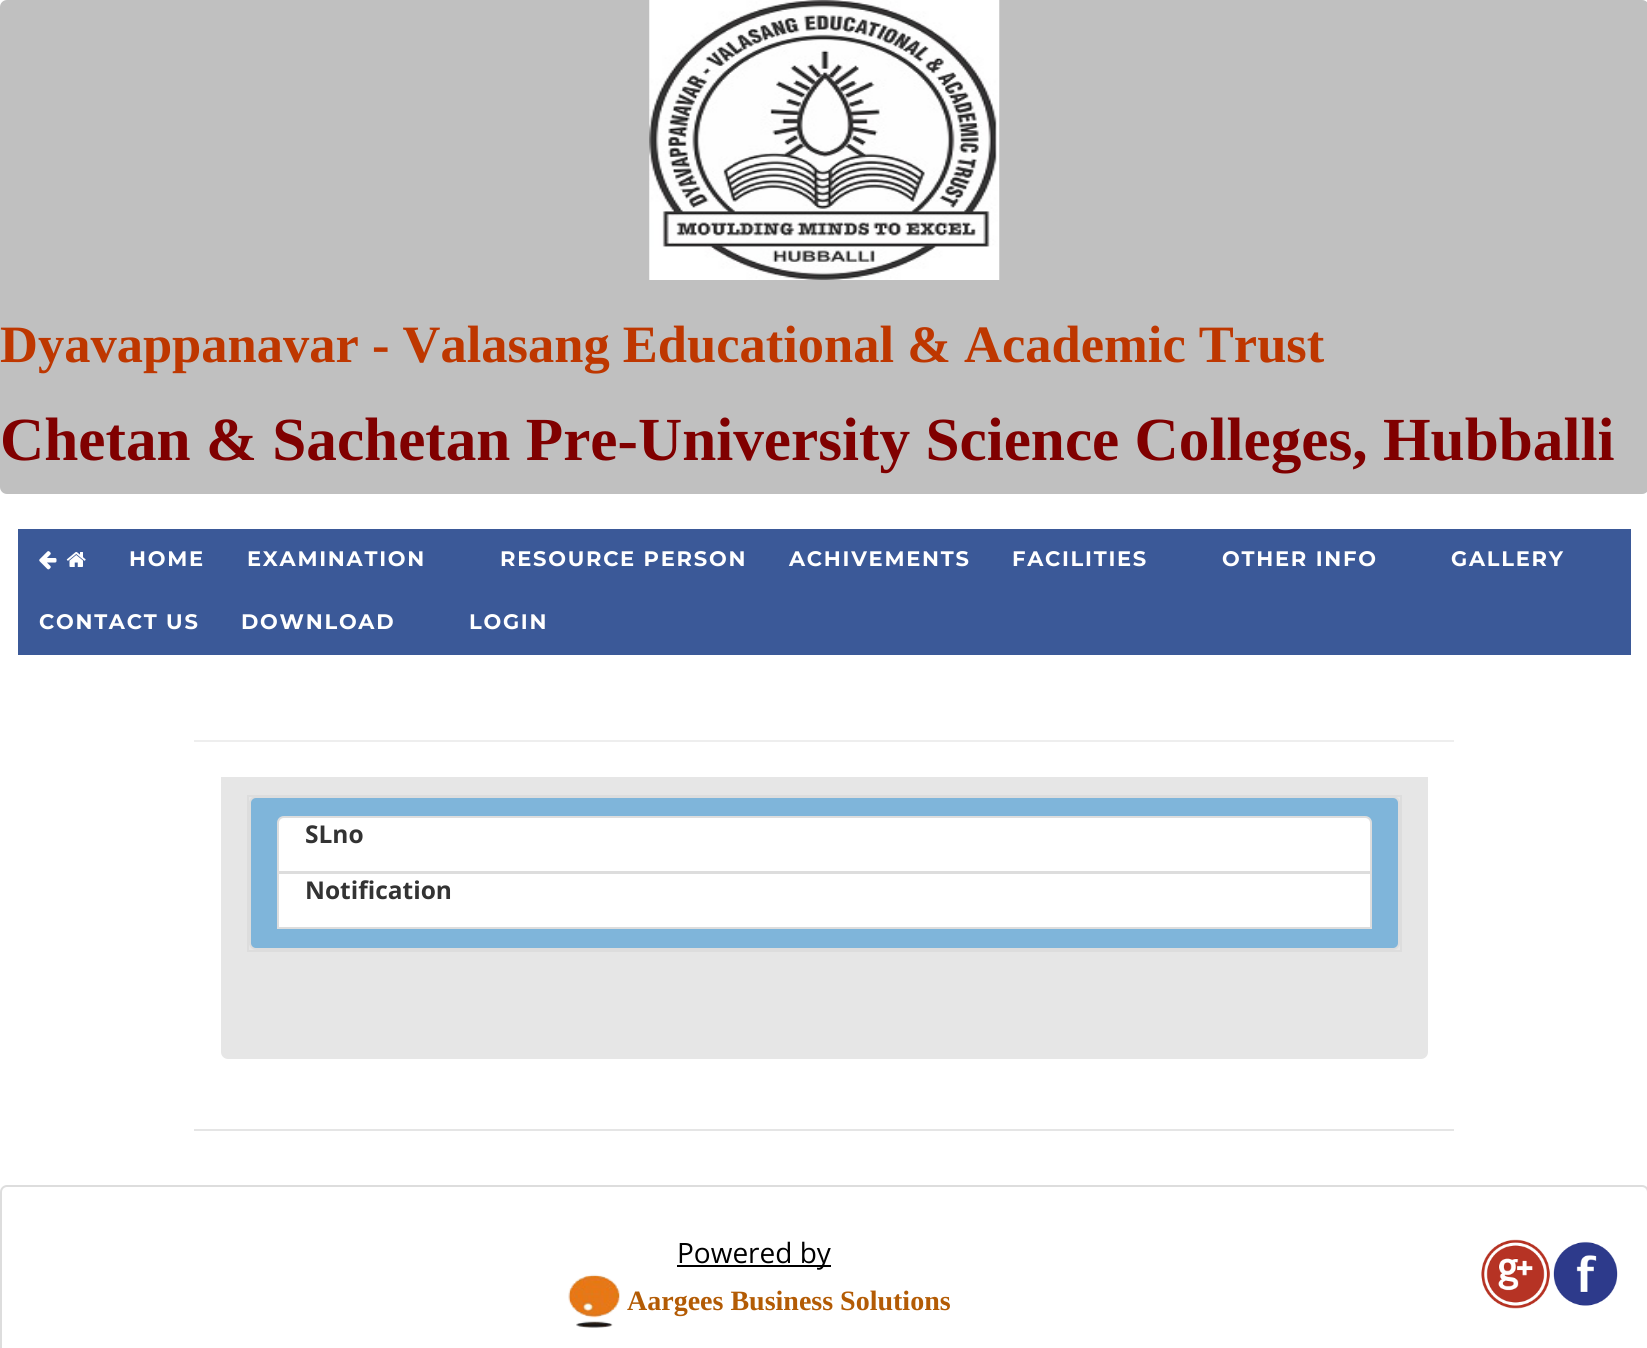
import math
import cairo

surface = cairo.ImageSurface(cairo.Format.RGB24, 1647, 1348)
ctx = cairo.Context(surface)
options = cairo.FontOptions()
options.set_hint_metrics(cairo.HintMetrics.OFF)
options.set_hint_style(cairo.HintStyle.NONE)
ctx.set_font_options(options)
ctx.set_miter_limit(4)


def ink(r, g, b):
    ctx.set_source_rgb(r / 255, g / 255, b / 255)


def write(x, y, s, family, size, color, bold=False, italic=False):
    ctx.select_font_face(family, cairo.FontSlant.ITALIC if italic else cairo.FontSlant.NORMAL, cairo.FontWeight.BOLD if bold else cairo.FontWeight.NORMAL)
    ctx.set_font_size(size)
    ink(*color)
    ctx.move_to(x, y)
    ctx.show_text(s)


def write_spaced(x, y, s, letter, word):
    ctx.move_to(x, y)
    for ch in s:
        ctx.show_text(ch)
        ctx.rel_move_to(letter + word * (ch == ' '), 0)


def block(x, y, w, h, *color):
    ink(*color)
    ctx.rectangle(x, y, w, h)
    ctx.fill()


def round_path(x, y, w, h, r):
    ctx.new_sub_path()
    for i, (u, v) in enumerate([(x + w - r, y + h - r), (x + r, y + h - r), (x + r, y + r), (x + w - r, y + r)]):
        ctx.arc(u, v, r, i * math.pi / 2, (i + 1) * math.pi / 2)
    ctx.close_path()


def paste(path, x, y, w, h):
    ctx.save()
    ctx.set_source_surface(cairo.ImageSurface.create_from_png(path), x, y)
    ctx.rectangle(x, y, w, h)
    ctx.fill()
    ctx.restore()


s1 = dict(family="Liberation Serif", size=52.5, color=(190, 55, 0), bold=True)
s2 = dict(family="Liberation Serif", size=61.25, color=(128, 0, 0), bold=True)
s3 = dict(family="Open Sans", size=24.5, color=(51, 51, 51), bold=True)
s4 = dict(family="Open Sans", size=28, color=(0, 0, 0))
s5 = dict(family="Liberation Serif", size=28, color=(179, 91, 4), bold=True)

ink(255, 255, 255)
ctx.paint()
ink(192, 192, 192)
round_path(0, 0, 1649, 494, 7)
ctx.fill()
paste("pic1.png", 649, 0, 351, 280)
write(0, 362, "Dyavappanavar - Valasang Educational & Academic Trust", **s1)
write(0, 460, "Chetan & Sachetan Pre-University Science Colleges, Hubballi", **s2)
block(18, 529, 1613, 126, 59, 89, 152)
paste("pic2.png", 39, 551, 18, 19)
paste("pic3.png", 66, 552, 20, 15)
ctx.select_font_face("Montserrat", cairo.FontSlant.NORMAL, cairo.FontWeight.BOLD)
ctx.set_font_size(21)
ink(255, 255, 255)
write_spaced(129, 566, "HOME", 1.75, 0)
write_spaced(247, 566, "EXAMINATION", 1.75, 0)
write_spaced(500, 566, "RESOURCE PERSON", 1.75, 0)
write_spaced(789, 566, "ACHIVEMENTS", 1.75, 0)
write_spaced(1012, 566, "FACILITIES", 1.75, 0)
write_spaced(1222, 566, "OTHER INFO", 1.75, 0)
write_spaced(1451, 566, "GALLERY", 1.75, 0)
write_spaced(39, 629, "CONTACT US", 1.75, 0)
write_spaced(241, 629, "DOWNLOAD", 1.75, 0)
write_spaced(469, 629, "LOGIN", 1.75, 0)
block(194, 740, 1260, 2, 238, 238, 238)
ink(230, 230, 230)
round_path(221, 777, 1207, 282, 7)
ctx.fill()
block(221, 777, 1207, 6, 230, 230, 230)
block(247, 795, 1155, 2, 221, 221, 221)
block(1400, 795, 2, 157, 221, 221, 221)
block(247, 950, 1155, 2, 221, 221, 221)
block(247, 795, 2, 157, 221, 221, 221)
ink(127, 181, 218)
round_path(250, 797, 1149, 152, 6)
ctx.fill_preserve()
ink(221, 221, 221)
ctx.stroke()
ink(255, 255, 255)
ctx.new_path()
ctx.move_to(284, 817)
ctx.line_to(1365, 817)
ctx.curve_to(1368.5, 817, 1371, 819.5, 1371, 823)
ctx.line_to(1371, 872)
ctx.line_to(278, 872)
ctx.line_to(278, 823)
ctx.curve_to(278, 819.5, 280.5, 817, 284, 817)
ctx.close_path()
ctx.fill_preserve()
ink(221, 221, 221)
ctx.stroke()
write(305, 843, "SLno", **s3)
ink(255, 255, 255)
ctx.rectangle(278, 873, 1093, 55)
ctx.fill_preserve()
ink(221, 221, 221)
ctx.stroke()
write(305, 899, "Notification", **s3)
block(194, 1129, 1260, 2, 229, 229, 229)
round_path(1, 1186, 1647, 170, 6)
ink(221, 221, 221)
ctx.stroke()
paste("pic4.png", 568, 1274, 52, 54)
block(677, 1265, 154, 2, 0, 0, 0)
write(677, 1263, "Powered by", **s4)
paste("pic5.png", 1481, 1239, 69, 70)
paste("pic6.png", 1553, 1241, 65, 65)
write(627, 1310, "Aargees Business Solutions", **s5)
surface.write_to_png("screenshot.png")
